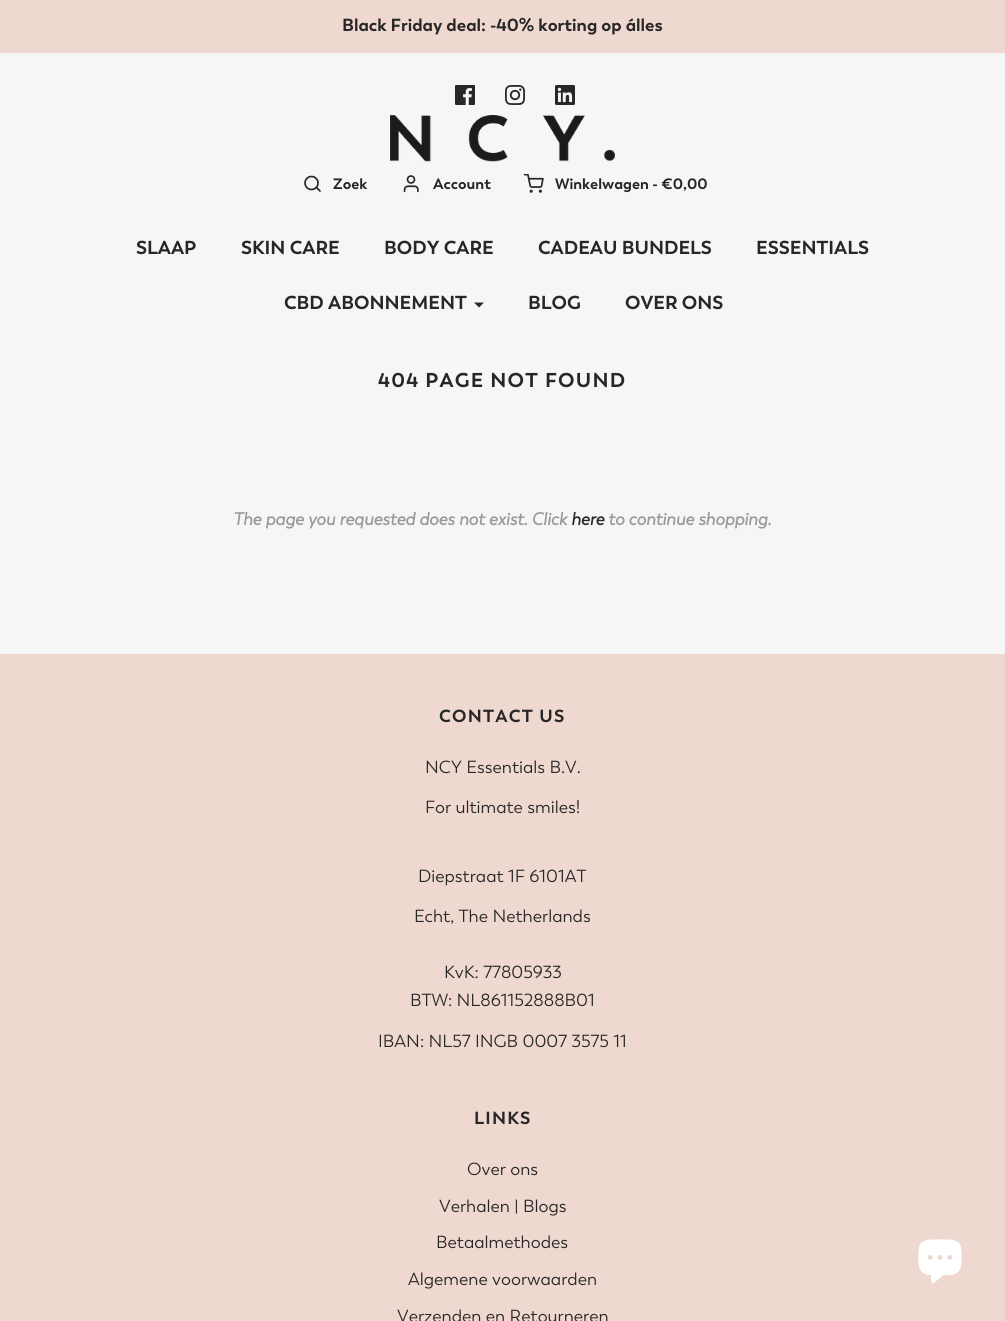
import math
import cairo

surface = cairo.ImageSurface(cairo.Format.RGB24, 1005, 1321)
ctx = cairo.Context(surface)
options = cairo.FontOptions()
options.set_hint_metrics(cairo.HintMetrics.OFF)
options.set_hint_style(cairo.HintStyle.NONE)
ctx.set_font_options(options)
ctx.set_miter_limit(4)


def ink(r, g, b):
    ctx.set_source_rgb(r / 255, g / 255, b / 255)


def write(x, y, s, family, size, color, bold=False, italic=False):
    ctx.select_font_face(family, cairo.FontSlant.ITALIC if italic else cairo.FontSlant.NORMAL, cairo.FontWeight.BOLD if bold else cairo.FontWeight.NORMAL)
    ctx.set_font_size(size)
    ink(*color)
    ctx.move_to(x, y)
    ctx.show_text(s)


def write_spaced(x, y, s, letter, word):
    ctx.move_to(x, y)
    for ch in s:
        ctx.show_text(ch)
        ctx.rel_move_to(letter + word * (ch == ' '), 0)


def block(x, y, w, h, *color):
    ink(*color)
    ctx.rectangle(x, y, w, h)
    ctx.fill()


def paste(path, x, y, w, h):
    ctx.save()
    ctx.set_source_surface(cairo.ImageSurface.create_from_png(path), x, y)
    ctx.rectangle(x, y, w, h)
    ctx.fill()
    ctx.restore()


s1 = dict(family="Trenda", size=17.5, color=(40, 39, 39), bold=True)
s2 = dict(family="Trenda", size=15, color=(40, 39, 39), bold=True)
s3 = dict(family="Trenda", size=18.75, color=(40, 39, 39), bold=True)
s4 = dict(family="Trenda", size=17.5, color=(153, 153, 153), bold=True, italic=True)
s5 = dict(family="Trenda", size=17.5, color=(40, 39, 39), bold=True, italic=True)
s6 = dict(family="Trenda", size=17.5, color=(40, 39, 39))

ink(246, 246, 246)
ctx.paint()
block(0, 0, 1005, 53, 239, 216, 207)
write(342, 31, "Black Friday deal: -40% korting op álles", **s1)
paste("pic1.png", 455, 85, 20, 20)
paste("pic2.png", 505, 85, 20, 20)
paste("pic3.png", 555, 85, 20, 20)
paste("pic4.png", 390, 115, 225, 47)
ctx.arc(311.5, 183, 6.5, 0, 2 * math.pi)
ctx.set_line_width(1.7)
ctx.stroke()
ctx.new_path()
ctx.move_to(320, 191)
ctx.line_to(316.5, 187.5)
ctx.set_line_cap(cairo.LineCap.ROUND)
ctx.set_line_join(cairo.LineJoin.ROUND)
ctx.stroke()
write(333, 189, "Zoek", **s2)
paste("pic5.png", 403, 175, 16, 18)
write(433, 189, "Account", **s2)
paste("pic6.png", 523, 174, 21, 19)
write(555, 189, "Winkelwagen - €0,00", **s2)
write(136, 254, "SLAAP", **s3)
write(241, 254, "SKIN CARE", **s3)
write(384, 254, "BODY CARE", **s3)
write(538, 254, "CADEAU BUNDELS", **s3)
write(756, 254, "ESSENTIALS", **s3)
write(284, 309, "CBD ABONNEMENT", **s3)
ctx.new_path()
ctx.move_to(474, 302.5)
ctx.line_to(484, 302.5)
ctx.line_to(479, 307.5)
ctx.close_path()
ctx.fill()
write(528, 309, "BLOG", **s3)
write(625, 309, "OVER ONS", **s3)
ctx.set_font_size(20)
write_spaced(378, 387, "404 PAGE NOT FOUND", 1.25, 0)
write(233, 525, "The page you requested does not exist. Click", **s4)
write(571, 525, "here", **s5)
write(608, 525, "to continue shopping.", **s4)
block(0, 654, 1005, 667, 239, 216, 207)
ctx.select_font_face("Trenda", cairo.FontSlant.NORMAL, cairo.FontWeight.BOLD)
ink(40, 39, 39)
write_spaced(439, 722, "CONTACT US", 1.25, 0)
write(425, 773, "NCY Essentials B.V.", **s6)
write(425, 813, "For ultimate smiles!", **s6)
write(418, 882, "Diepstraat 1F 6101AT", **s6)
write(414, 922, "Echt, The Netherlands", **s6)
write(444, 978, "KvK: 77805933", **s6)
write(410, 1006, "BTW: NL861152888B01", **s6)
write(378, 1047, "IBAN: NL57 INGB 0007 3575 11", **s6)
ctx.select_font_face("Trenda", cairo.FontSlant.NORMAL, cairo.FontWeight.BOLD)
write_spaced(474, 1124, "LINKS", 1.25, 0)
write(467, 1175, "Over ons", **s6)
write(439, 1212, "Verhalen | Blogs", **s6)
write(436, 1248, "Betaalmethodes", **s6)
write(408, 1285, "Algemene voorwaarden", **s6)
write(397, 1322, "Verzenden en Retourneren", **s6)
paste("pic7.png", 918, 1239, 44, 44)
surface.write_to_png("screenshot.png")
